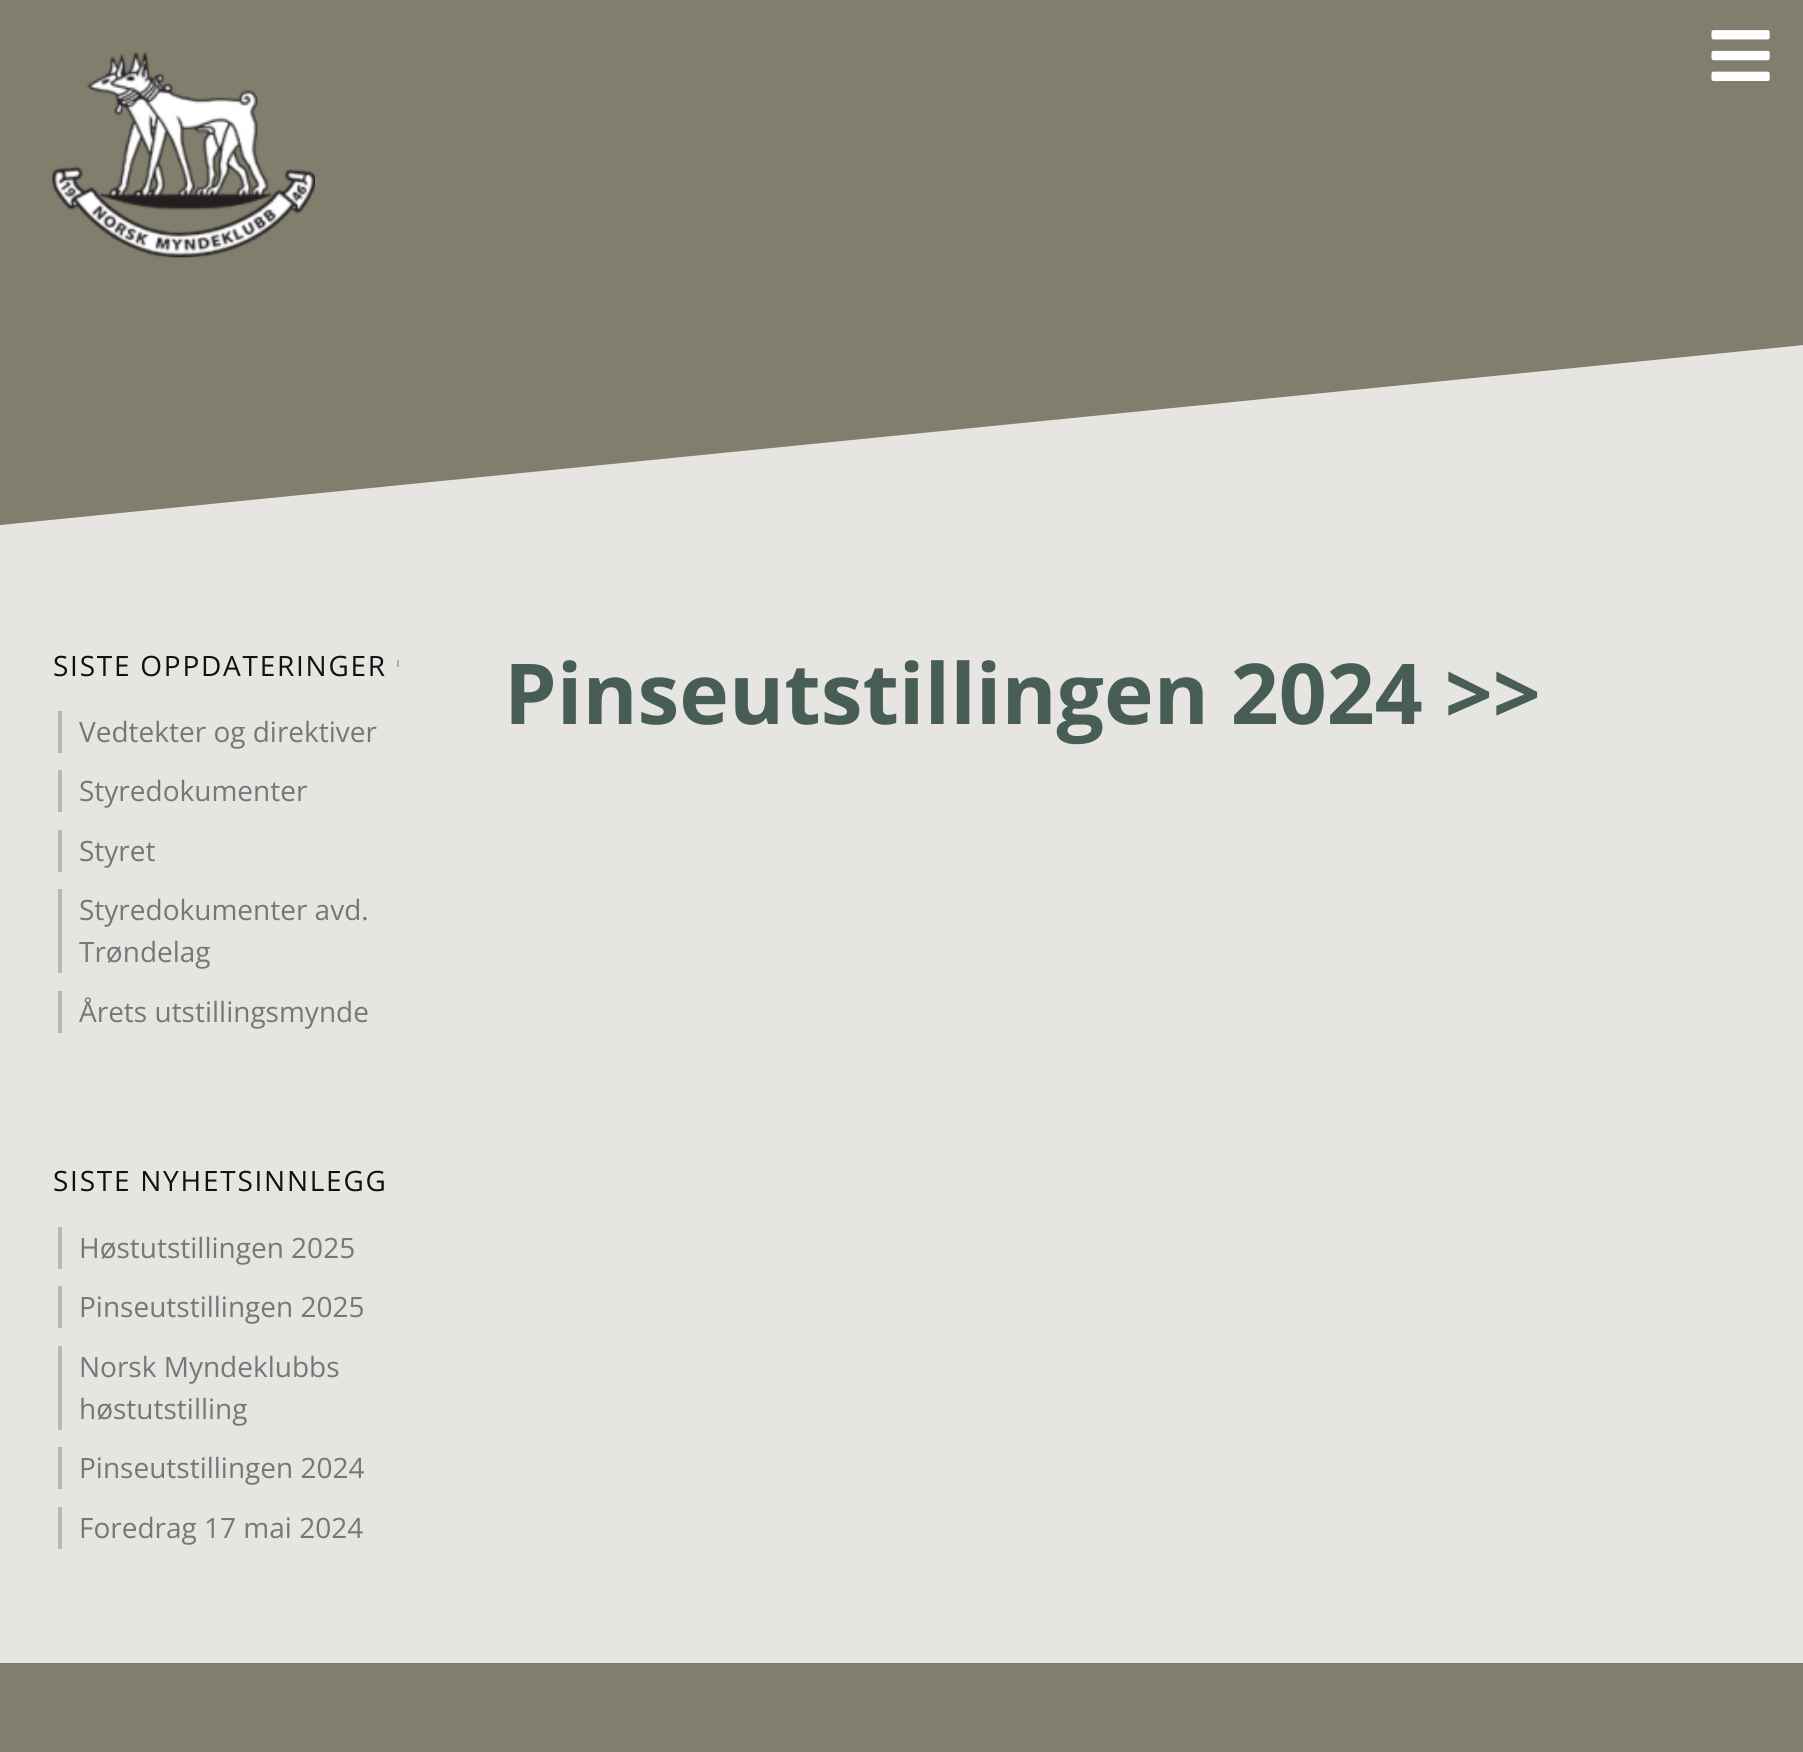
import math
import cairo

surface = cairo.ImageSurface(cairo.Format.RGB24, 1803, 1752)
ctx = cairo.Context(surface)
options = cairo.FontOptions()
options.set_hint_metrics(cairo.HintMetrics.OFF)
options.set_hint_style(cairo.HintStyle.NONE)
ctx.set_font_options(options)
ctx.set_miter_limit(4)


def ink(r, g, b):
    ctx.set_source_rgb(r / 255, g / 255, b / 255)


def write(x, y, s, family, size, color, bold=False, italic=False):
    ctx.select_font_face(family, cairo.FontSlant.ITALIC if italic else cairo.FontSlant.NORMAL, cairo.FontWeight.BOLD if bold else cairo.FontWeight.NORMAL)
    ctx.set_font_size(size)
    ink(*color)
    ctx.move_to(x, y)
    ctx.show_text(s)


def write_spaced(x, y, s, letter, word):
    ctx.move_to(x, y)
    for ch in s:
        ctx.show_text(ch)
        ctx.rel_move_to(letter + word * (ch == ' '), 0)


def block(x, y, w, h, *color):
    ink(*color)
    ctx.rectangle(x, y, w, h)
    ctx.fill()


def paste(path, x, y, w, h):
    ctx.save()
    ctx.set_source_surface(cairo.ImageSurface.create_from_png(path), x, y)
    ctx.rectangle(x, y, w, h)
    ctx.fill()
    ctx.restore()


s1 = dict(family="Open Sans", size=28, color=(119, 119, 119))
s2 = dict(family="Open Sans", size=84, color=(72, 93, 86), bold=True)

ink(130, 126, 109)
ctx.paint()
paste("pic1.png", 52, 52, 263, 206)
paste("pic2.png", 1711, 30, 59, 51)
ink(230, 229, 226)
ctx.new_path()
ctx.move_to(0, 525)
ctx.line_to(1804, 345)
ctx.line_to(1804, 525)
ctx.close_path()
ctx.fill()
block(0, 525, 1803, 1138, 230, 229, 226)
ctx.select_font_face("Open Sans")
ctx.set_font_size(28)
ink(17, 17, 17)
write_spaced(53, 676, "SISTE OPPDATERINGER", 1.75, 0)
block(397, 660, 2, 7, 173, 172, 170)
block(58, 711, 4, 42, 184, 183, 181)
write(79, 742, "Vedtekter og direktiver", **s1)
block(58, 770, 4, 42, 184, 183, 181)
write(79, 801, "Styredokumenter", **s1)
block(58, 830, 4, 42, 184, 183, 181)
write(79, 861, "Styret", **s1)
block(58, 889, 4, 84, 184, 183, 181)
write(79, 920, "Styredokumenter avd.", **s1)
write(79, 962, "Trøndelag", **s1)
block(58, 991, 4, 42, 184, 183, 181)
write(79, 1022, "Årets utstillingsmynde", **s1)
ink(17, 17, 17)
write_spaced(53, 1191, "SISTE NYHETSINNLEGG", 1.75, 0)
block(58, 1227, 4, 42, 184, 183, 181)
write(79, 1258, "Høstutstillingen 2025", **s1)
block(58, 1286, 4, 42, 184, 183, 181)
write(79, 1317, "Pinseutstillingen 2025", **s1)
block(58, 1346, 4, 84, 184, 183, 181)
write(79, 1377, "Norsk Myndeklubbs", **s1)
write(79, 1419, "høstutstilling", **s1)
block(58, 1447, 4, 42, 184, 183, 181)
write(79, 1478, "Pinseutstillingen 2024", **s1)
block(58, 1507, 4, 42, 184, 183, 181)
write(79, 1538, "Foredrag 17 mai 2024", **s1)
write(504, 724, "Pinseutstillingen 2024 >>", **s2)
surface.write_to_png("screenshot.png")
